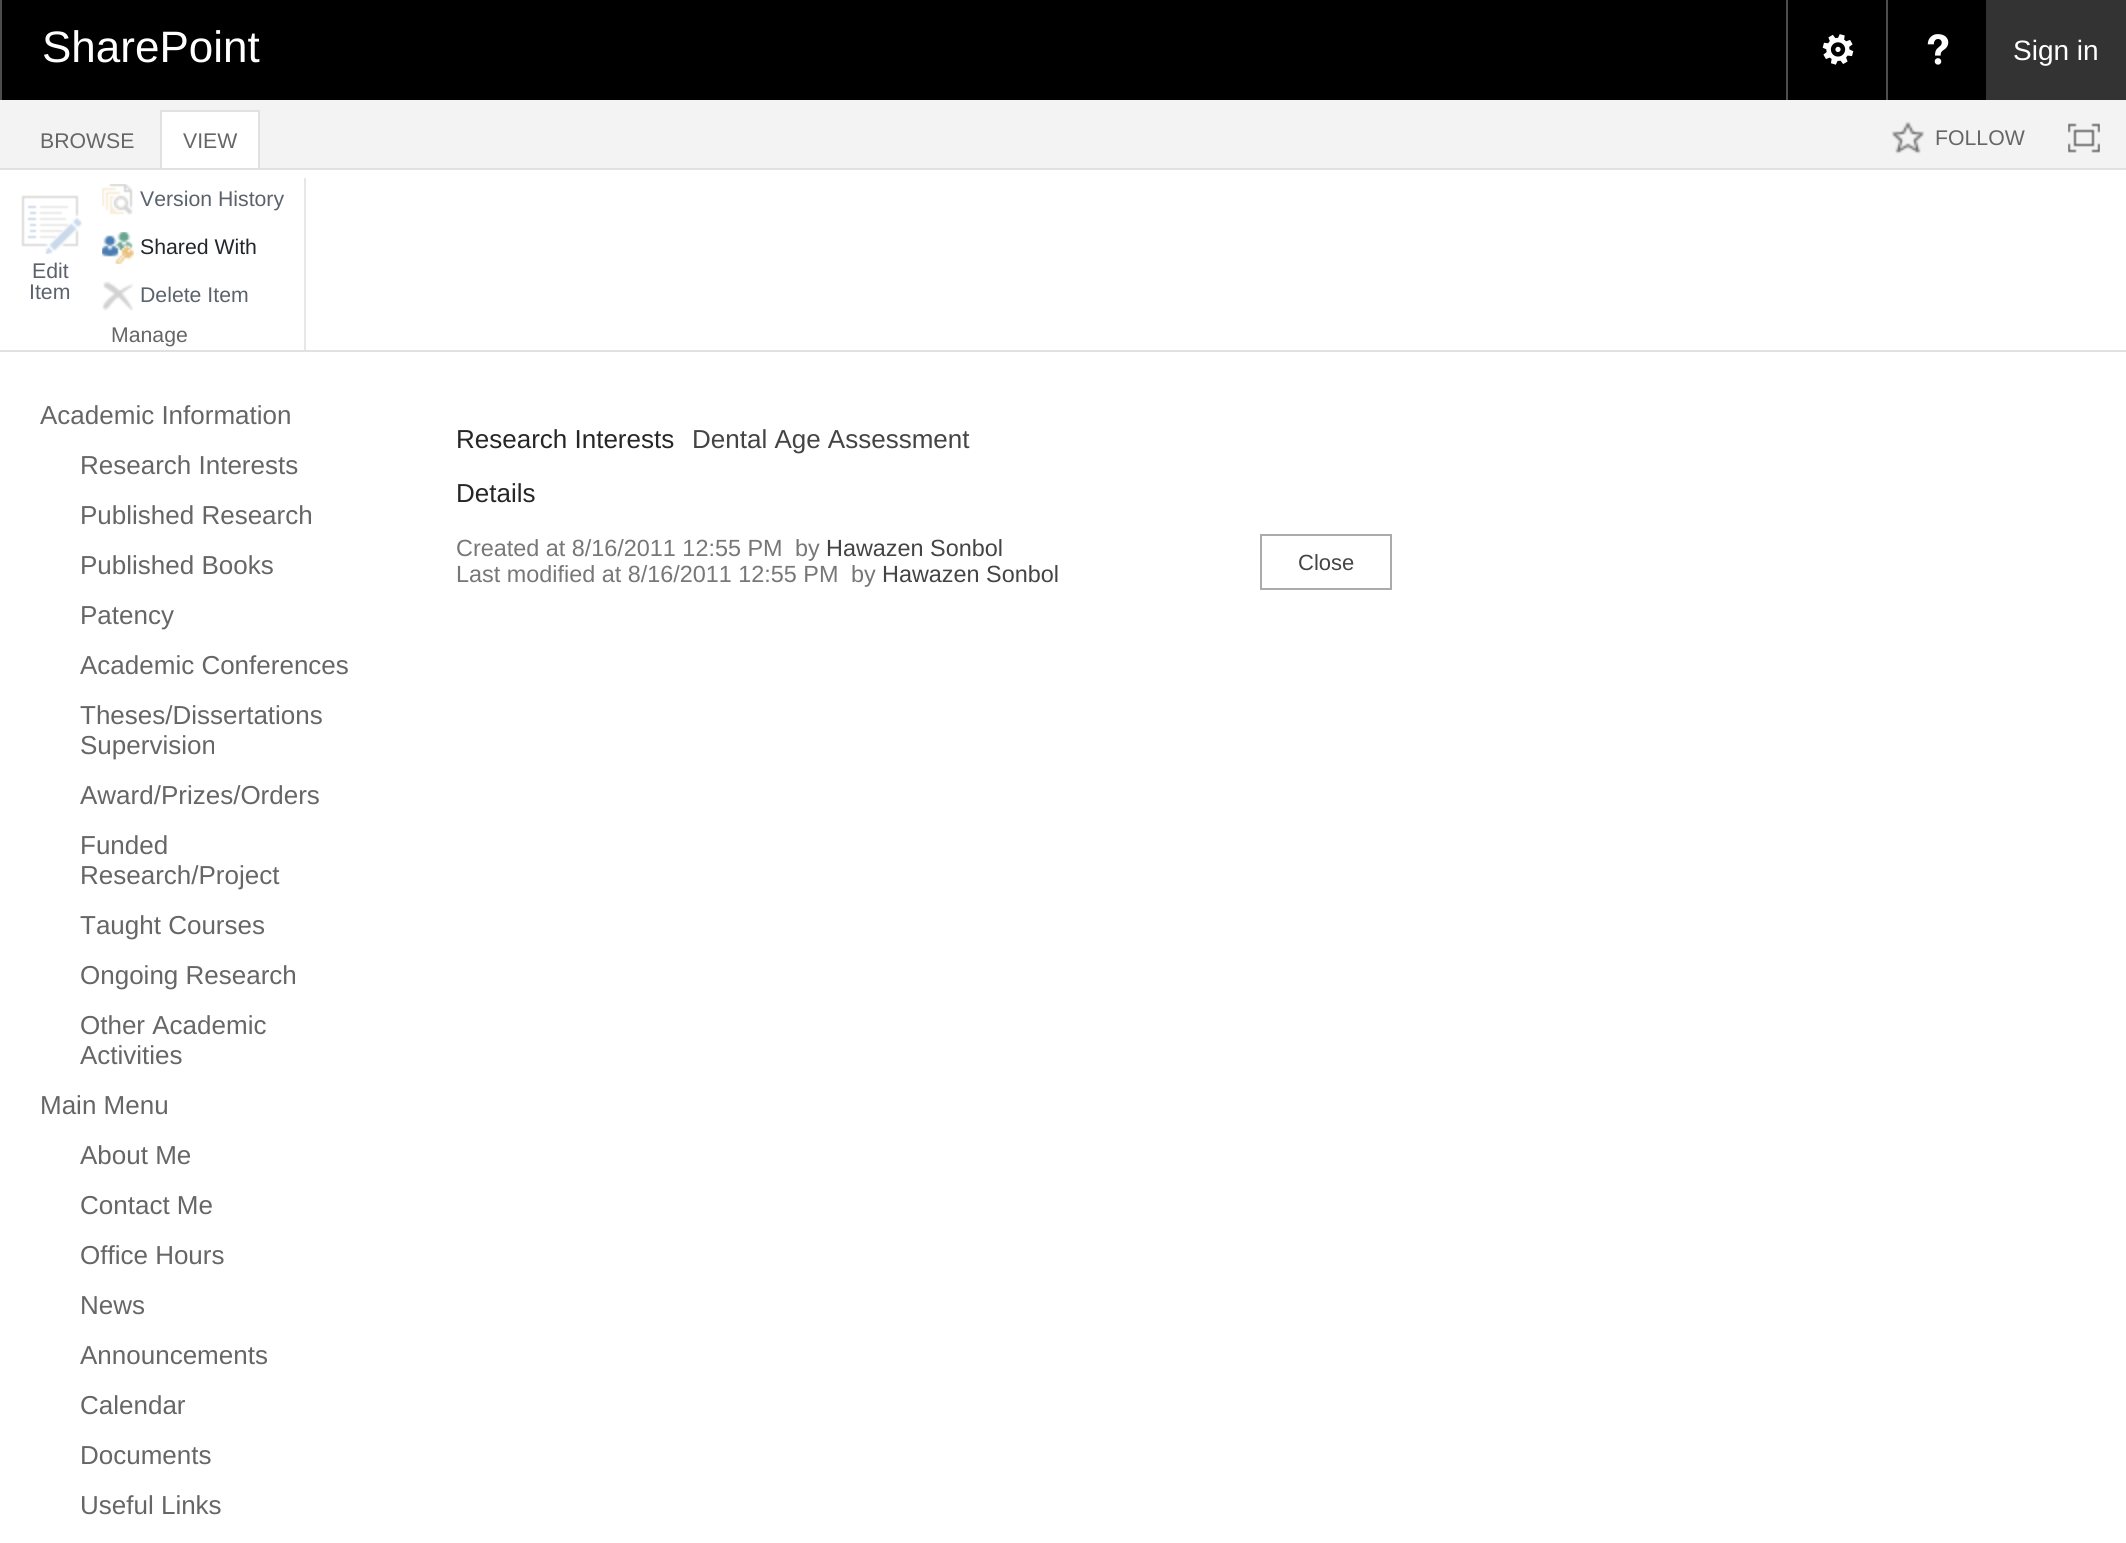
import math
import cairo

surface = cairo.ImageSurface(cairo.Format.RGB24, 2126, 1543)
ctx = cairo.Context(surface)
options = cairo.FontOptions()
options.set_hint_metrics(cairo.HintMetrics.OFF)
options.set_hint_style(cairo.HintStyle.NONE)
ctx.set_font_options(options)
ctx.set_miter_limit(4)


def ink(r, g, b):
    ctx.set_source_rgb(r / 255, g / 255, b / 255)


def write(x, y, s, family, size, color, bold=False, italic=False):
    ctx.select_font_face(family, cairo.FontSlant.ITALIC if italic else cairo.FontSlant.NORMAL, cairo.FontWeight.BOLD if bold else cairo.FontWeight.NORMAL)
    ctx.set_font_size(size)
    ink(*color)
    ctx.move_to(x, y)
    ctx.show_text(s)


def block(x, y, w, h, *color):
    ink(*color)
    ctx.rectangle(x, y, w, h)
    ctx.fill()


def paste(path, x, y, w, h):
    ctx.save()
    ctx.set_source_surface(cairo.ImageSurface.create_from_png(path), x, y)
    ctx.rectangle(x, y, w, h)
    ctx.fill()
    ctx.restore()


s1 = dict(family="Liberation Sans", size=44, color=(255, 255, 255))
s2 = dict(family="Liberation Sans", size=28, color=(255, 255, 255))
s3 = dict(family="Liberation Sans", size=21.25, color=(102, 102, 102))
s4 = dict(family="Liberation Sans", size=21.25, color=(91, 98, 108))
s5 = dict(family="Liberation Sans", size=21.25, color=(35, 39, 44))
s6 = dict(family="Liberation Sans", size=26, color=(102, 102, 102))
s7 = dict(family="Liberation Sans", size=26, color=(38, 38, 38))
s8 = dict(family="Liberation Sans", size=26, color=(68, 68, 68))
s9 = dict(family="Liberation Sans", size=23.4, color=(119, 119, 119))
s10 = dict(family="Liberation Sans", size=23.4, color=(68, 68, 68))
s11 = dict(family="Liberation Sans", size=22, color=(68, 68, 68))

ink(255, 255, 255)
ctx.paint()
block(2, 0, 1984, 100, 0, 0, 0)
block(0, 0, 2, 100, 77, 77, 77)
write(42, 62, "SharePoint", **s1)
block(1786, 0, 2, 100, 77, 77, 77)
paste("pic1.png", 1822, 34, 32, 31)
block(1886, 0, 2, 100, 77, 77, 77)
paste("pic2.png", 1927, 34, 22, 31)
block(1986, 0, 140, 100, 51, 51, 51)
write(2013, 60, "Sign in", **s2)
block(0, 100, 2126, 68, 243, 243, 243)
block(0, 168, 2126, 2, 225, 225, 225)
write(40, 148, "BROWSE", **s3)
block(162, 112, 96, 56, 255, 255, 255)
block(160, 110, 100, 2, 225, 225, 225)
block(258, 110, 2, 58, 225, 225, 225)
block(160, 110, 2, 58, 225, 225, 225)
write(183, 148, "VIEW", **s3)
paste("pic3.png", 1892, 122, 32, 32)
write(1935, 145, "FOLLOW", **s3)
paste("pic4.png", 2068, 123, 32, 30)
block(0, 350, 2126, 2, 225, 225, 225)
paste("pic5.png", 21, 195, 61, 59)
write(32, 278, "Edit", **s4)
write(29, 299, "Item", **s4)
paste("pic6.png", 102, 184, 31, 31)
write(140, 206, "Version History", **s4)
paste("pic7.png", 102, 232, 32, 32)
write(140, 254, "Shared With", **s5)
paste("pic8.png", 102, 281, 32, 30)
write(140, 302, "Delete Item", **s4)
write(111, 342, "Manage", **s3)
block(304, 178, 2, 172, 231, 231, 232)
write(40, 424, "Academic Information", **s6)
write(80, 474, "Research Interests", **s6)
write(80, 524, "Published Research", **s6)
write(80, 574, "Published Books", **s6)
write(80, 624, "Patency", **s6)
write(80, 674, "Academic Conferences", **s6)
write(80, 724, "Theses/Dissertations", **s6)
write(80, 754, "Supervision", **s6)
write(80, 804, "Award/Prizes/Orders", **s6)
write(80, 854, "Funded", **s6)
write(80, 884, "Research/Project", **s6)
write(80, 934, "Taught Courses", **s6)
write(80, 984, "Ongoing Research", **s6)
write(80, 1034, "Other Academic", **s6)
write(80, 1064, "Activities", **s6)
write(40, 1114, "Main Menu", **s6)
write(80, 1164, "About Me", **s6)
write(80, 1214, "Contact Me", **s6)
write(80, 1264, "Office Hours", **s6)
write(80, 1314, "News", **s6)
write(80, 1364, "Announcements", **s6)
write(80, 1414, "Calendar", **s6)
write(80, 1464, "Documents", **s6)
write(80, 1514, "Useful Links", **s6)
write(456, 448, "Research Interests", **s7)
write(692, 448, "Dental Age Assessment", **s8)
write(456, 502, "Details", **s7)
write(456, 556, "Created at 8/16/2011 12:55 PM", **s9)
write(795, 556, "by", **s9)
write(826, 556, "Hawazen Sonbol", **s10)
write(456, 582, "Last modified at 8/16/2011 12:55 PM", **s9)
write(851, 582, "by", **s9)
write(882, 582, "Hawazen Sonbol", **s10)
ctx.rectangle(1261, 535, 130, 54)
ink(171, 171, 171)
ctx.stroke()
write(1298, 570, "Close", **s11)
surface.write_to_png("screenshot.png")
